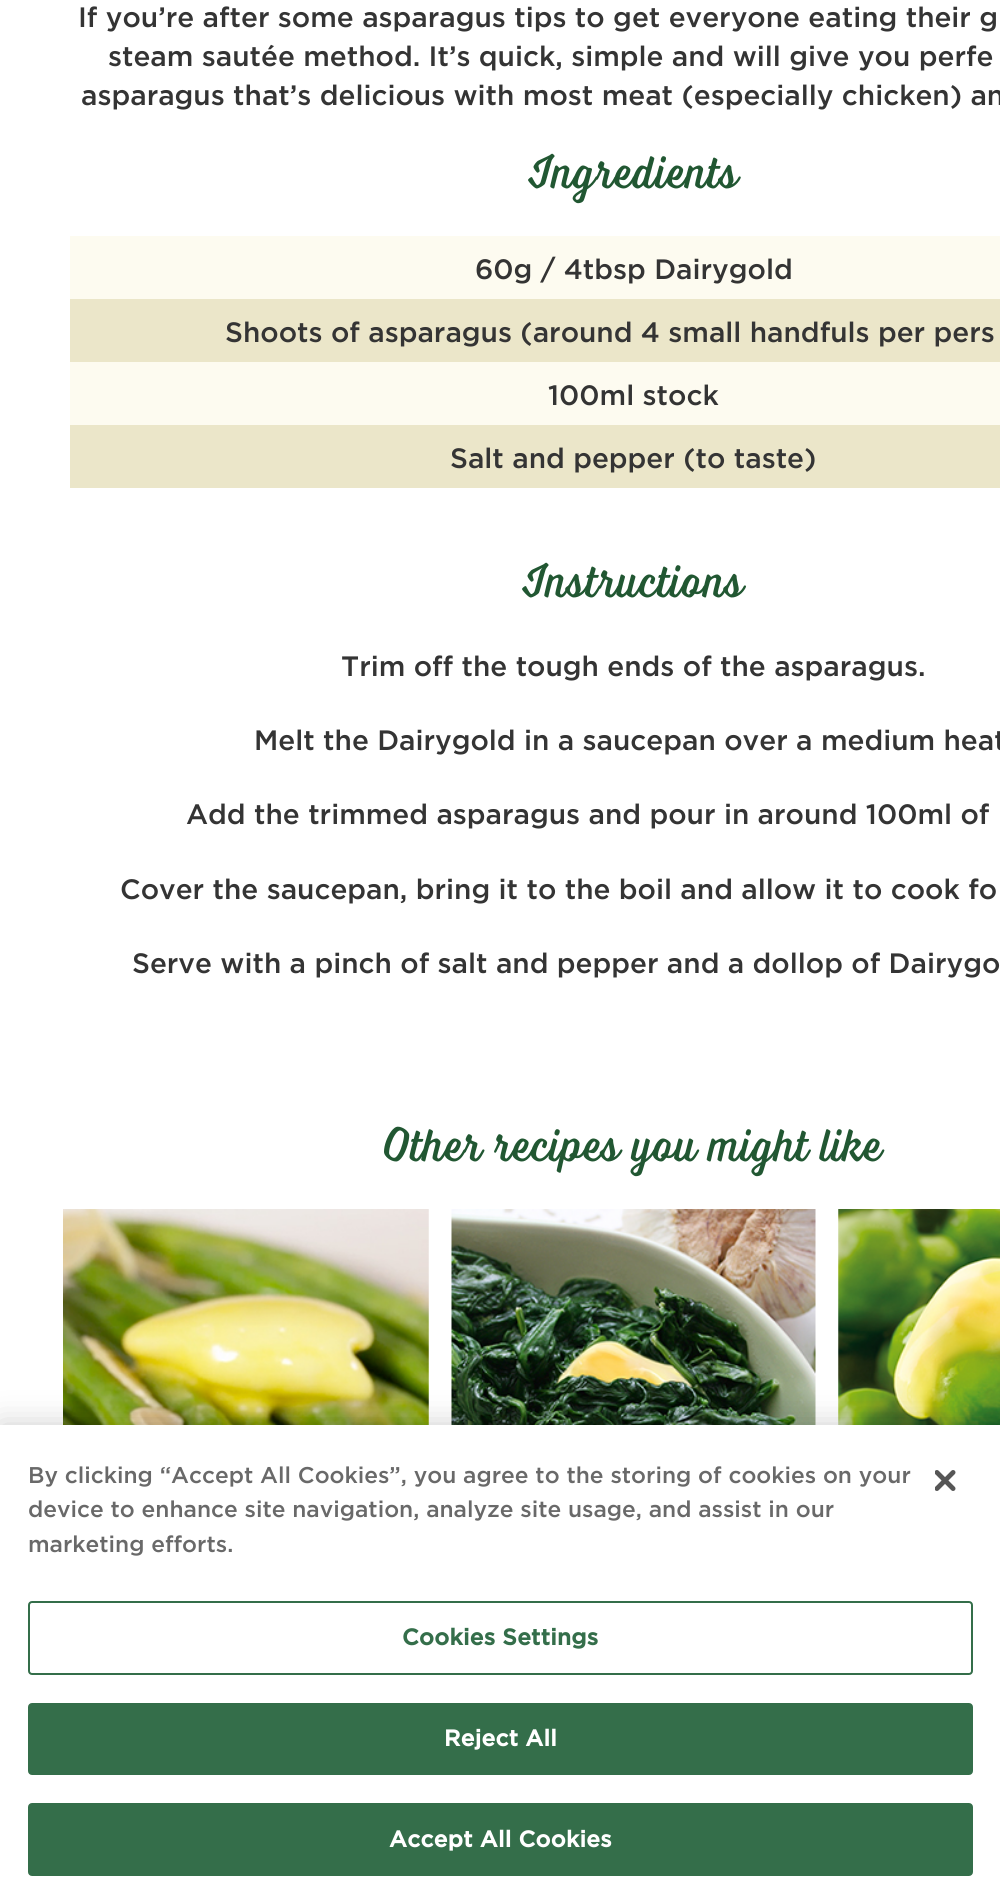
import math
import cairo

surface = cairo.ImageSurface(cairo.Format.RGB24, 1000, 1903)
ctx = cairo.Context(surface)
options = cairo.FontOptions()
options.set_hint_metrics(cairo.HintMetrics.OFF)
options.set_hint_style(cairo.HintStyle.NONE)
ctx.set_font_options(options)
ctx.set_miter_limit(4)


def ink(r, g, b):
    ctx.set_source_rgb(r / 255, g / 255, b / 255)


def write(x, y, s, family, size, color, bold=False, italic=False):
    ctx.select_font_face(family, cairo.FontSlant.ITALIC if italic else cairo.FontSlant.NORMAL, cairo.FontWeight.BOLD if bold else cairo.FontWeight.NORMAL)
    ctx.set_font_size(size)
    ink(*color)
    ctx.move_to(x, y)
    ctx.show_text(s)


def write_spaced(x, y, s, letter, word):
    ctx.move_to(x, y)
    for ch in s:
        ctx.show_text(ch)
        ctx.rel_move_to(letter + word * (ch == ' '), 0)


def block(x, y, w, h, *color):
    ink(*color)
    ctx.rectangle(x, y, w, h)
    ctx.fill()


def round_path(x, y, w, h, r):
    ctx.new_sub_path()
    for i, (u, v) in enumerate([(x + w - r, y + h - r), (x + r, y + h - r), (x + r, y + r), (x + w - r, y + r)]):
        ctx.arc(u, v, r, i * math.pi / 2, (i + 1) * math.pi / 2)
    ctx.close_path()


def blur_box(x, y, w, h, r, blur, alpha):
    ctx.push_group_with_content(cairo.Content.ALPHA)
    ctx.set_operator(cairo.Operator.SOURCE)
    for i in range(15, -16, -2):
        e = blur * i / 6
        if min(w, h) + 2 * e > 0:
            ctx.set_source_rgba(0, 0, 0, alpha * math.erfc((i - 1) / 8.5) / 2)
            round_path(x - e, y - e, w + 2 * e, h + 2 * e, max(0, min(r + e + blur * .6, min(w, h) / 2 + e)))
            ctx.fill()
    ctx.mask(ctx.pop_group())


def paste(path, x, y, w, h):
    ctx.save()
    ctx.set_source_surface(cairo.ImageSurface.create_from_png(path), x, y)
    ctx.rectangle(x, y, w, h)
    ctx.fill()
    ctx.restore()


s1 = dict(family="Gotham Medium", size=28, color=(52, 52, 52))
s2 = dict(family="Gotham Medium", size=22.75, color=(105, 105, 105))

ink(255, 255, 255)
ctx.paint()
write(78, 27, "If you’re after some asparagus tips to get everyone eating their g", **s1)
write(108, 66, "steam sautée method. It’s quick, simple and will give you perfe", **s1)
write(81, 105, "asparagus that’s delicious with most meat (especially chicken) an", **s1)
ctx.select_font_face("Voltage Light")
ctx.set_font_size(49)
ink(33, 87, 50)
write_spaced(528, 188, "Ingredients", 0.7, 0)
block(70, 236, 930, 63, 253, 251, 240)
write(475, 279, "60g / 4tbsp Dairygold", **s1)
block(70, 299, 930, 63, 235, 230, 201)
write(225, 342, "Shoots of asparagus (around 4 small handfuls per pers", **s1)
block(70, 362, 930, 63, 253, 251, 240)
write(548, 405, "100ml stock", **s1)
block(70, 425, 930, 63, 235, 230, 201)
write(450, 468, "Salt and pepper (to taste)", **s1)
ctx.select_font_face("Voltage Light")
ctx.set_font_size(49)
ink(33, 87, 50)
write_spaced(522, 597, "Instructions", 0.7, 0)
write(341, 676, "Trim off the tough ends of the asparagus.", **s1)
write(254, 750, "Melt the Dairygold in a saucepan over a medium heat", **s1)
write(186, 824, "Add the trimmed asparagus and pour in around 100ml of", **s1)
write(120, 899, "Cover the saucepan, bring it to the boil and allow it to cook fo", **s1)
write(132, 973, "Serve with a pinch of salt and pepper and a dollop of Dairygo", **s1)
ctx.select_font_face("Voltage Light")
ctx.set_font_size(49)
ink(33, 87, 50)
write_spaced(384, 1161, "Other recipes you might like", 0.7, 0)
paste("pic1.png", 63, 1209, 366, 216)
paste("pic2.png", 451, 1209, 365, 216)
paste("pic3.png", 838, 1209, 162, 216)
ink(0, 0, 0)
blur_box(0, 1425, 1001, 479, 0, 16, 0.2)
block(0, 1425, 1000, 478, 255, 255, 255)
write(28, 1483, "By clicking “Accept All Cookies”, you agree to the storing of cookies on your", **s2)
write(28, 1517, "device to enhance site navigation, analyze site usage, and assist in our", **s2)
write(28, 1552, "marketing efforts.", **s2)
round_path(29, 1602, 943, 72, 3)
ink(52, 110, 74)
ctx.stroke()
ctx.select_font_face("Gotham", cairo.FontSlant.NORMAL, cairo.FontWeight.BOLD)
write_spaced(402, 1645, "Cookies Settings", 0.25, 0)
round_path(29, 1704, 943, 70, 3)
ctx.fill_preserve()
ctx.stroke()
ink(255, 255, 255)
write_spaced(444, 1746, "Reject All", 0.25, 0)
ink(52, 110, 74)
round_path(29, 1804, 943, 71, 3)
ctx.fill_preserve()
ctx.stroke()
ink(255, 255, 255)
write_spaced(389, 1847, "Accept All Cookies", 0.25, 0)
paste("pic4.png", 935, 1470, 21, 21)
surface.write_to_png("screenshot.png")
